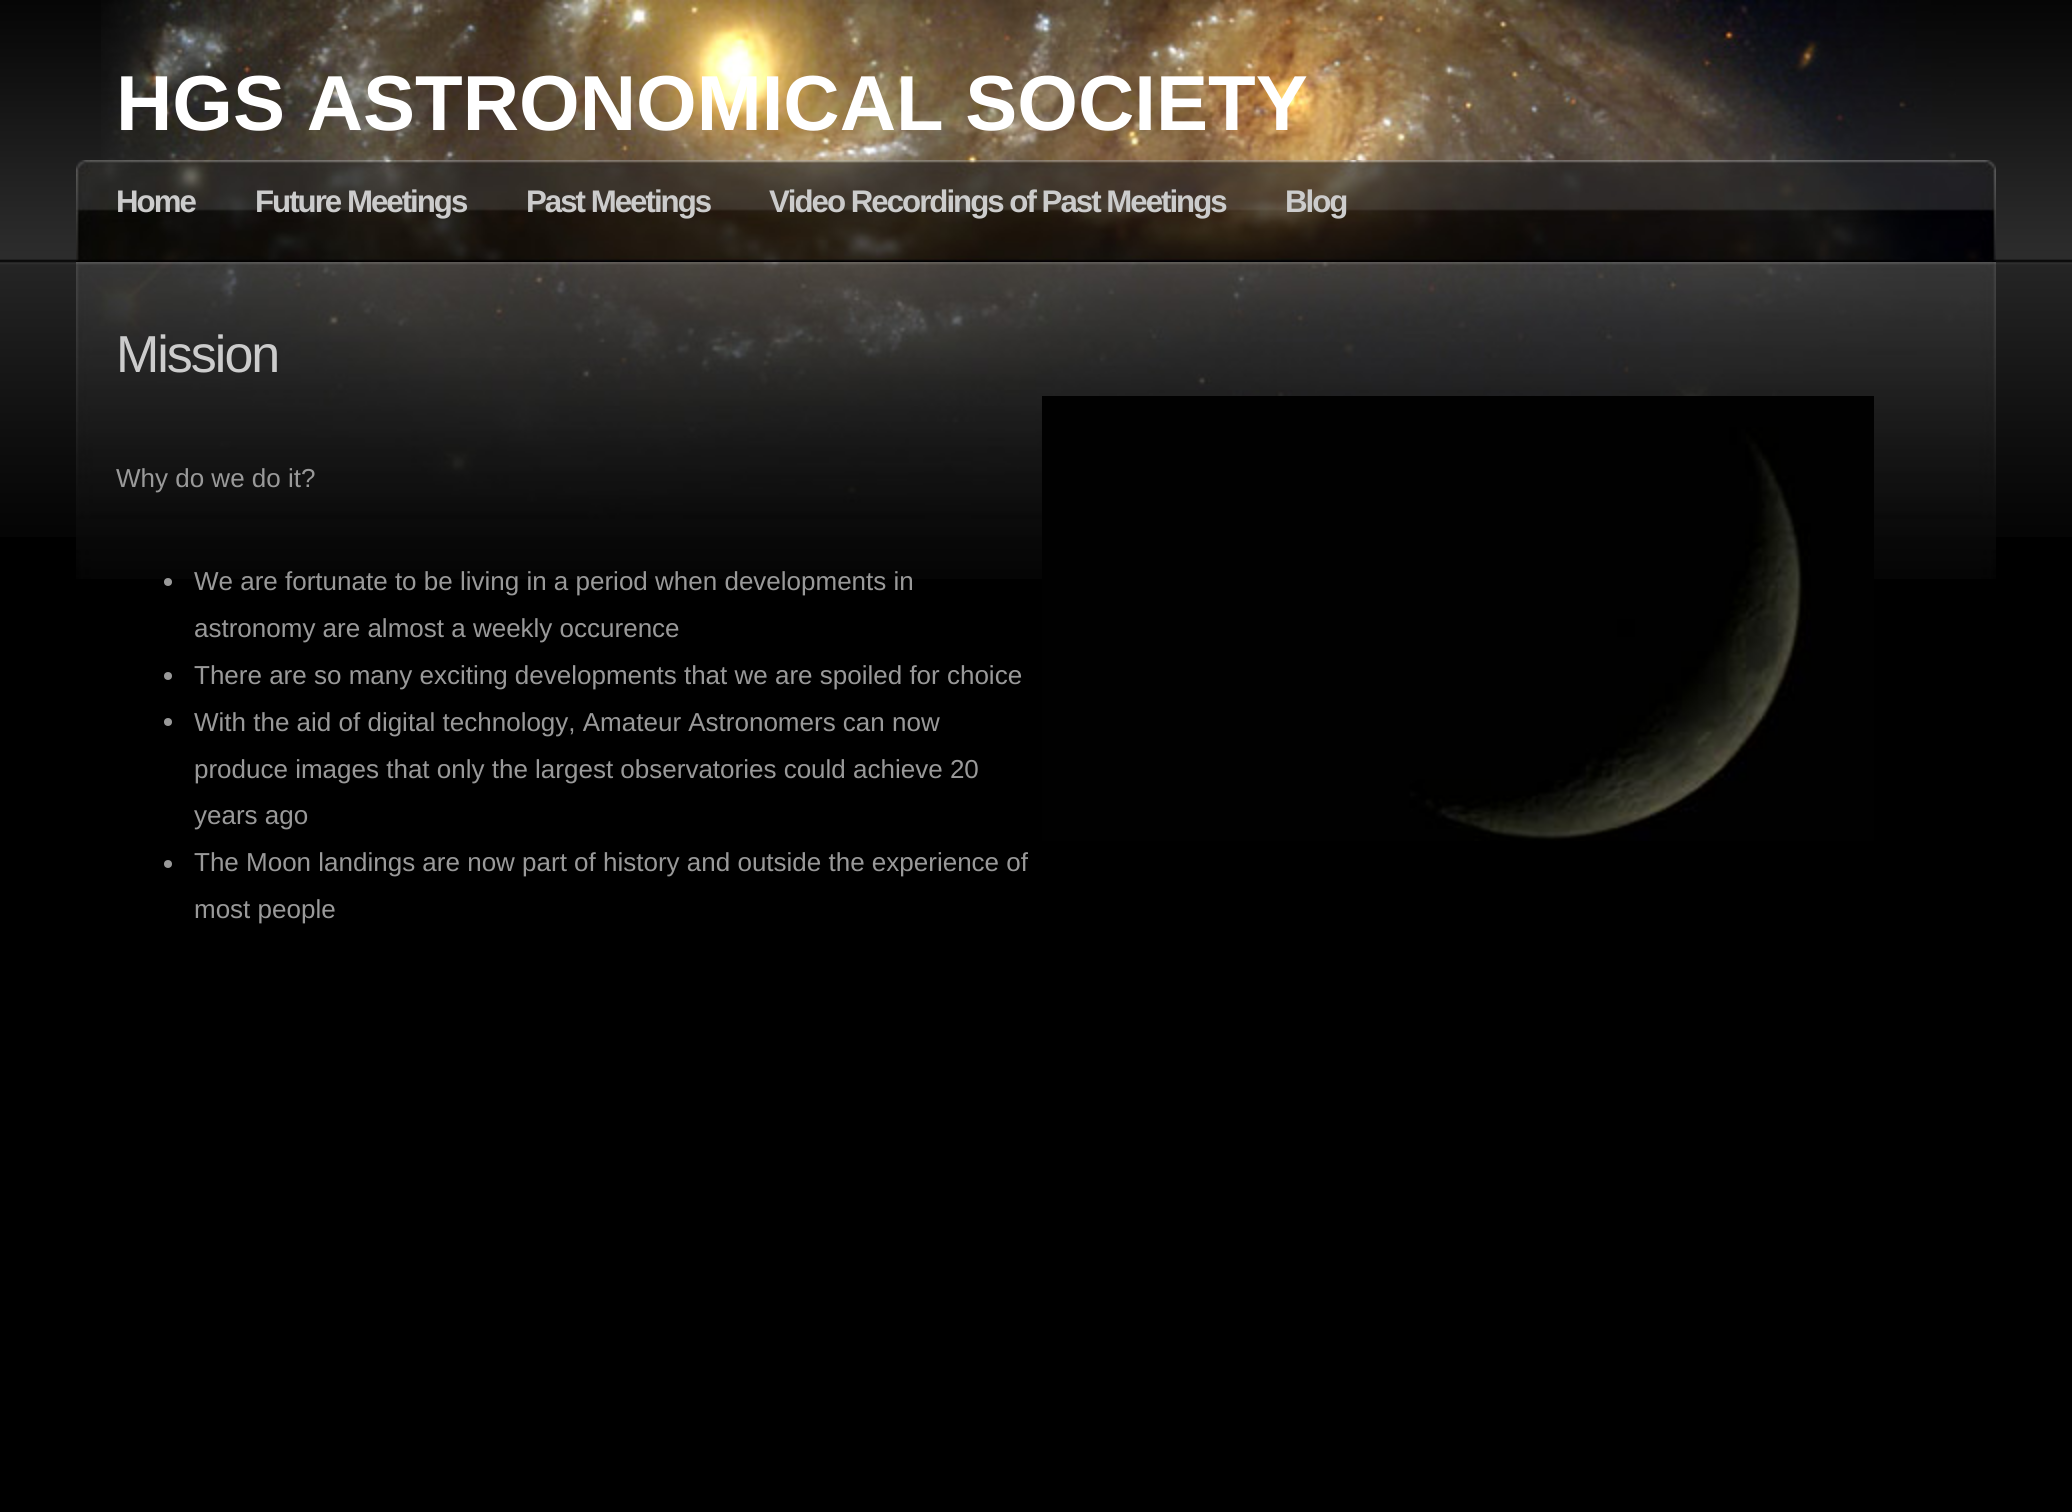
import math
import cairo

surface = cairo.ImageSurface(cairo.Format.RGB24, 2072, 1512)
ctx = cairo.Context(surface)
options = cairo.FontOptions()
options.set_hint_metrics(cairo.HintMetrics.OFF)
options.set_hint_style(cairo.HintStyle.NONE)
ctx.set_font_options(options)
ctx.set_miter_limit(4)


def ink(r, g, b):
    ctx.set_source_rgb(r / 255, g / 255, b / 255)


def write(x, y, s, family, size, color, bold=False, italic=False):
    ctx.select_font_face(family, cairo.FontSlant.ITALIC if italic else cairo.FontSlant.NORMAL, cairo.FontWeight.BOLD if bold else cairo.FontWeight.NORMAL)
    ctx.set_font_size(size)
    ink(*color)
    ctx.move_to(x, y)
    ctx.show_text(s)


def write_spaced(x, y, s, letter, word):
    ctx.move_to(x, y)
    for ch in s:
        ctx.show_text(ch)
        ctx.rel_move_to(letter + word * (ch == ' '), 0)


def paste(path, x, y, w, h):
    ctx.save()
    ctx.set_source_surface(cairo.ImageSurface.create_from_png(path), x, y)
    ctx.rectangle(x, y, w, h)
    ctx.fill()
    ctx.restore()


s1 = dict(family="Liberation Sans", size=78, color=(255, 255, 255), bold=True)
s2 = dict(family="Liberation Sans", size=26, color=(153, 153, 153))

ink(0, 0, 0)
ctx.paint()
paste("pic1.png", 0, 0, 2072, 537)
paste("pic2.png", 101, 0, 1855, 160)
write(116, 130, "HGS ASTRONOMICAL SOCIETY", **s1)
paste("pic3.png", 76, 160, 1920, 102)
ctx.set_font_size(31.25)
ink(204, 204, 204)
write_spaced(116, 212, "Home", -2, 0)
write_spaced(255, 212, "Future Meetings", -2, 0)
write_spaced(526, 212, "Past Meetings", -2, 0)
write_spaced(769, 212, "Video Recordings of Past Meetings", -2, 0)
write_spaced(1285, 212, "Blog", -2, 0)
paste("pic4.png", 76, 262, 1920, 317)
ctx.select_font_face("Liberation Sans")
ctx.set_font_size(52)
write_spaced(116, 372, "Mission", -2, 0)
write(116, 487, "Why do we do it?", **s2)
ctx.new_path()
ctx.arc(168, 582, 4, 0, 2 * math.pi)
ctx.fill()
write(194, 590, "We are fortunate to be living in a period when developments in", **s2)
write(194, 637, "astronomy are almost a weekly occurence", **s2)
ctx.new_path()
ctx.arc(168, 676, 4, 0, 2 * math.pi)
ctx.fill()
write(194, 684, "There are so many exciting developments that we are spoiled for choice", **s2)
ctx.new_path()
ctx.arc(168, 722, 4, 0, 2 * math.pi)
ctx.fill()
write(194, 731, "With the aid of digital technology, Amateur Astronomers can now", **s2)
write(194, 778, "produce images that only the largest observatories could achieve 20", **s2)
write(194, 824, "years ago", **s2)
ctx.new_path()
ctx.arc(168, 864, 4, 0, 2 * math.pi)
ctx.fill()
write(194, 871, "The Moon landings are now part of history and outside the experience of", **s2)
write(194, 918, "most people", **s2)
paste("pic5.png", 1042, 396, 832, 445)
surface.write_to_png("screenshot.png")
